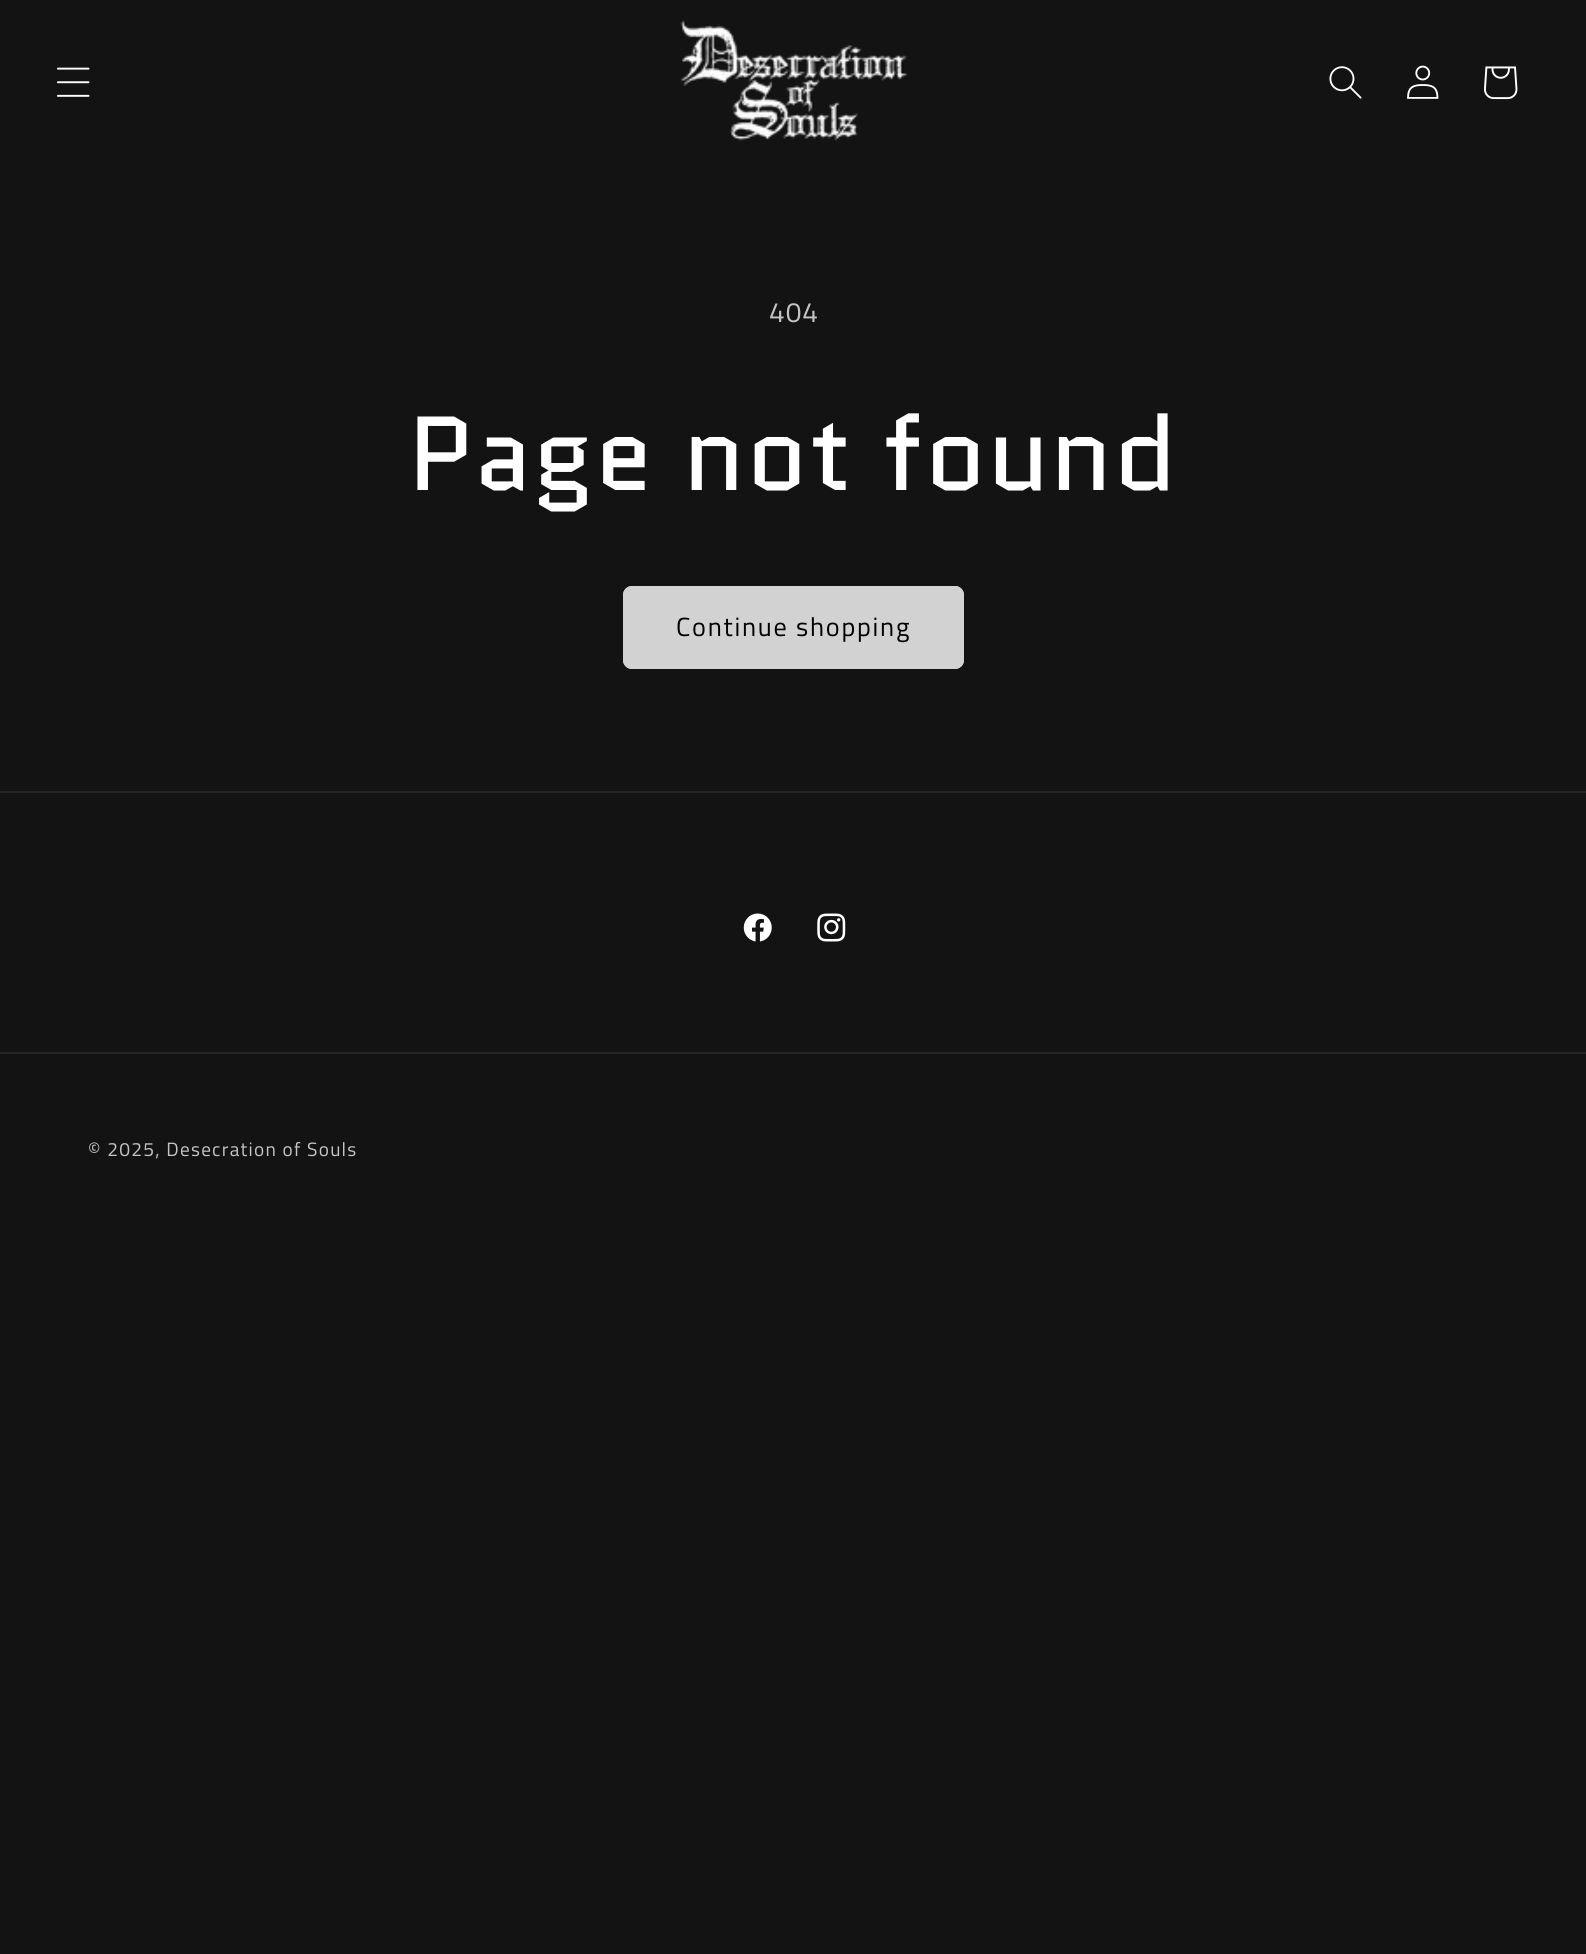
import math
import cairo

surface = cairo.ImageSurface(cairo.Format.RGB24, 1586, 1954)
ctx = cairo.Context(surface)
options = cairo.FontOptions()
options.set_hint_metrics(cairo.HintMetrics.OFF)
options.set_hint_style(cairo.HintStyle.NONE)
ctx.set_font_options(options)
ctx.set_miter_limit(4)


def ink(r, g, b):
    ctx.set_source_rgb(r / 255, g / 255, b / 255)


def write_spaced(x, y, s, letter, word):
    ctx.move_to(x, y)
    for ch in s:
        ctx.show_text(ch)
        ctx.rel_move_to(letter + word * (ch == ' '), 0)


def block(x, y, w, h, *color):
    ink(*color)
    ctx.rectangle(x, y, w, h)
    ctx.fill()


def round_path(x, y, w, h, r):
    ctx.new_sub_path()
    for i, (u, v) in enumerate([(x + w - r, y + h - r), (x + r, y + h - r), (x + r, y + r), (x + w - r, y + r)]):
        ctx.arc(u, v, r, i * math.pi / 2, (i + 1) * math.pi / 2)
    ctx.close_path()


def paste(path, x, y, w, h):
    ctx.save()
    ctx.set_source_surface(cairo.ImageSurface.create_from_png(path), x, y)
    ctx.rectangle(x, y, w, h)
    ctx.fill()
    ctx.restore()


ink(19, 19, 19)
ctx.paint()
paste("pic1.png", 57, 67, 33, 30)
paste("pic2.png", 680, 20, 227, 121)
paste("pic3.png", 1329, 66, 33, 33)
paste("pic4.png", 1407, 65, 32, 34)
paste("pic5.png", 1484, 66, 34, 34)
ctx.select_font_face("Titillium Web")
ctx.set_font_size(28)
ink(196, 196, 196)
write_spaced(769, 322, "404", 1, 0)
ctx.select_font_face("Quantico")
ctx.set_font_size(105)
ink(255, 255, 255)
write_spaced(408, 490, "Page not found", 1.5, 0)
ink(210, 210, 210)
round_path(623, 586, 341, 83, 9)
ctx.fill()
round_path(624, 587, 339, 81, 8)
ctx.stroke()
ctx.select_font_face("Titillium Web")
ctx.set_font_size(26.25)
ink(0, 0, 0)
write_spaced(676, 636, "Continue shopping", 1.75, 0)
block(0, 791, 1586, 2, 38, 38, 38)
paste("pic6.png", 743, 913, 29, 29)
paste("pic7.png", 817, 913, 29, 29)
block(0, 1052, 1586, 2, 38, 38, 38)
ctx.set_font_size(19.25)
ink(196, 196, 196)
write_spaced(88, 1156, "© 2025, Desecration of Souls", 1.25, 0)
surface.write_to_png("screenshot.png")
